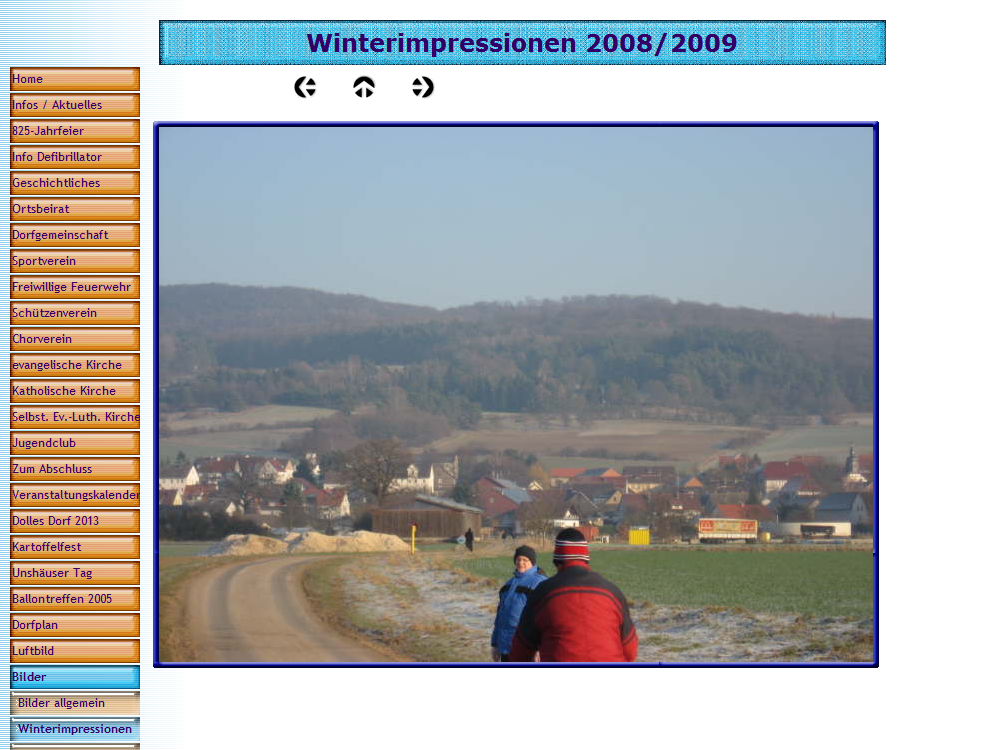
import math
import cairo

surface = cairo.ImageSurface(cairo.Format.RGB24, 1003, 750)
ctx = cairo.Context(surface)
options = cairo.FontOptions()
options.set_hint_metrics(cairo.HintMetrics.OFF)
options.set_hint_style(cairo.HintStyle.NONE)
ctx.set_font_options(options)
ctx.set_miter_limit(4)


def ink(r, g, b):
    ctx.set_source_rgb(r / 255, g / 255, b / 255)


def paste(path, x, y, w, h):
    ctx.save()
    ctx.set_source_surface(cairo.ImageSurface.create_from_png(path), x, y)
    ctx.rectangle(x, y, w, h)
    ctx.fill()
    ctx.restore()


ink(255, 255, 255)
ctx.paint()
paste("pic1.png", 0, 0, 184, 749)
paste("pic2.png", 10, 67, 130, 24)
paste("pic3.png", 10, 93, 130, 24)
paste("pic4.png", 10, 119, 130, 24)
paste("pic5.png", 10, 145, 130, 24)
paste("pic6.png", 10, 171, 130, 24)
paste("pic7.png", 10, 197, 130, 24)
paste("pic8.png", 10, 223, 130, 24)
paste("pic9.png", 10, 249, 130, 24)
paste("pic10.png", 10, 275, 130, 24)
paste("pic11.png", 10, 301, 130, 24)
paste("pic12.png", 10, 327, 130, 24)
paste("pic13.png", 10, 353, 130, 24)
paste("pic14.png", 10, 379, 130, 24)
paste("pic15.png", 10, 405, 130, 24)
paste("pic16.png", 10, 431, 130, 24)
paste("pic17.png", 10, 457, 130, 24)
paste("pic18.png", 10, 483, 130, 24)
paste("pic19.png", 10, 509, 130, 24)
paste("pic20.png", 10, 535, 130, 24)
paste("pic21.png", 10, 561, 130, 24)
paste("pic22.png", 10, 587, 130, 24)
paste("pic23.png", 10, 613, 130, 24)
paste("pic24.png", 10, 639, 130, 24)
paste("pic25.png", 10, 665, 130, 24)
paste("pic26.png", 10, 691, 130, 24)
paste("pic27.png", 10, 717, 130, 24)
paste("pic28.png", 10, 743, 130, 7)
paste("pic29.png", 159, 20, 727, 45)
paste("pic30.png", 294, 76, 23, 23)
paste("pic31.png", 353, 75, 23, 23)
paste("pic32.png", 412, 76, 23, 23)
paste("pic33.png", 153, 121, 6, 6)
paste("pic34.png", 159, 121, 714, 6)
paste("pic35.png", 873, 121, 6, 6)
paste("pic36.png", 153, 127, 6, 535)
paste("pic37.png", 159, 127, 714, 535)
paste("pic38.png", 873, 127, 6, 535)
paste("pic39.png", 153, 662, 6, 6)
paste("pic40.png", 159, 662, 714, 6)
paste("pic41.png", 873, 662, 6, 6)
surface.write_to_png("screenshot.png")
